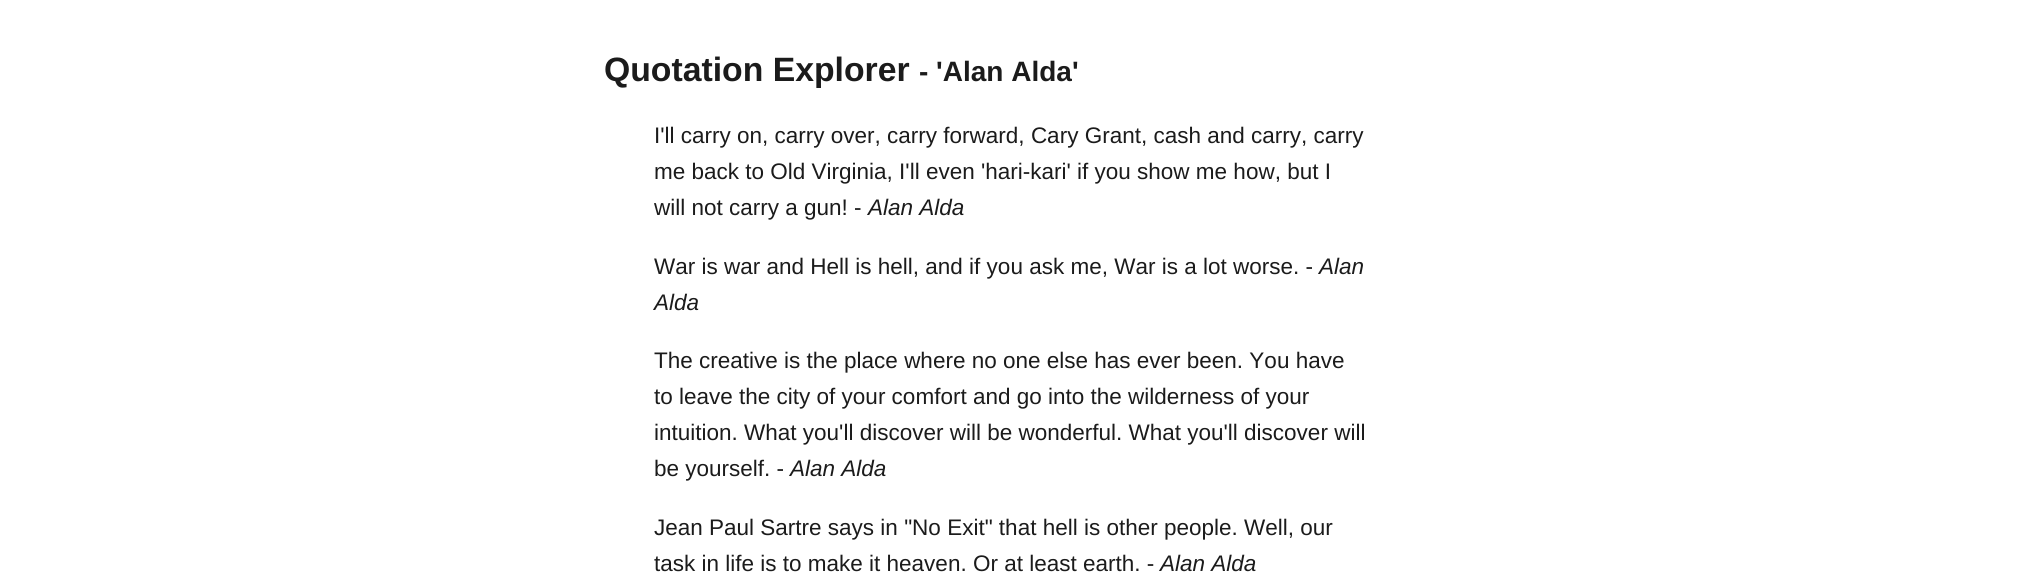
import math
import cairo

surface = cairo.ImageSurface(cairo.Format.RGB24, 2020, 579)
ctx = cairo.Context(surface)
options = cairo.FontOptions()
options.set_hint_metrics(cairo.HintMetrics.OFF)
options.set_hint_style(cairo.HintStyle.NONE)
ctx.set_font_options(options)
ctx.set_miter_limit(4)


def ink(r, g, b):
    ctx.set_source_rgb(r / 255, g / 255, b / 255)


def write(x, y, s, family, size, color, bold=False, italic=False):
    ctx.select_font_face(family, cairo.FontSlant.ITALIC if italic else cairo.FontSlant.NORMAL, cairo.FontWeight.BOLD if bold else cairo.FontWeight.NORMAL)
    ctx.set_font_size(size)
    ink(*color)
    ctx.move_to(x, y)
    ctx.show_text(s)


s1 = dict(family="Liberation Sans", size=33.75, color=(27, 27, 27), bold=True)
s2 = dict(family="Liberation Sans", size=28, color=(27, 27, 27), bold=True)
s3 = dict(family="Liberation Sans", size=22.5, color=(27, 27, 27))
s4 = dict(family="Liberation Sans", size=22.5, color=(27, 27, 27), italic=True)

ink(255, 255, 255)
ctx.paint()
write(604, 81, "Quotation Explorer", **s1)
write(919, 81, "- 'Alan Alda'", **s2)
write(654, 143, "I'll carry on, carry over, carry forward, Cary Grant, cash and carry, carry", **s3)
write(654, 179, "me back to Old Virginia, I'll even 'hari-kari' if you show me how, but I", **s3)
write(654, 215, "will not carry a gun! -", **s3)
write(868, 215, "Alan Alda", **s4)
write(654, 274, "War is war and Hell is hell, and if you ask me, War is a lot worse. -", **s3)
write(1319, 274, "Alan", **s4)
write(654, 310, "Alda", **s4)
write(654, 368, "The creative is the place where no one else has ever been. You have", **s3)
write(654, 404, "to leave the city of your comfort and go into the wilderness of your", **s3)
write(654, 440, "intuition. What you'll discover will be wonderful. What you'll discover will", **s3)
write(654, 476, "be yourself. -", **s3)
write(790, 476, "Alan Alda", **s4)
write(654, 535, "Jean Paul Sartre says in \"No Exit\" that hell is other people. Well, our", **s3)
write(654, 571, "task in life is to make it heaven. Or at least earth. -", **s3)
write(1160, 571, "Alan Alda", **s4)
surface.write_to_png("screenshot.png")
